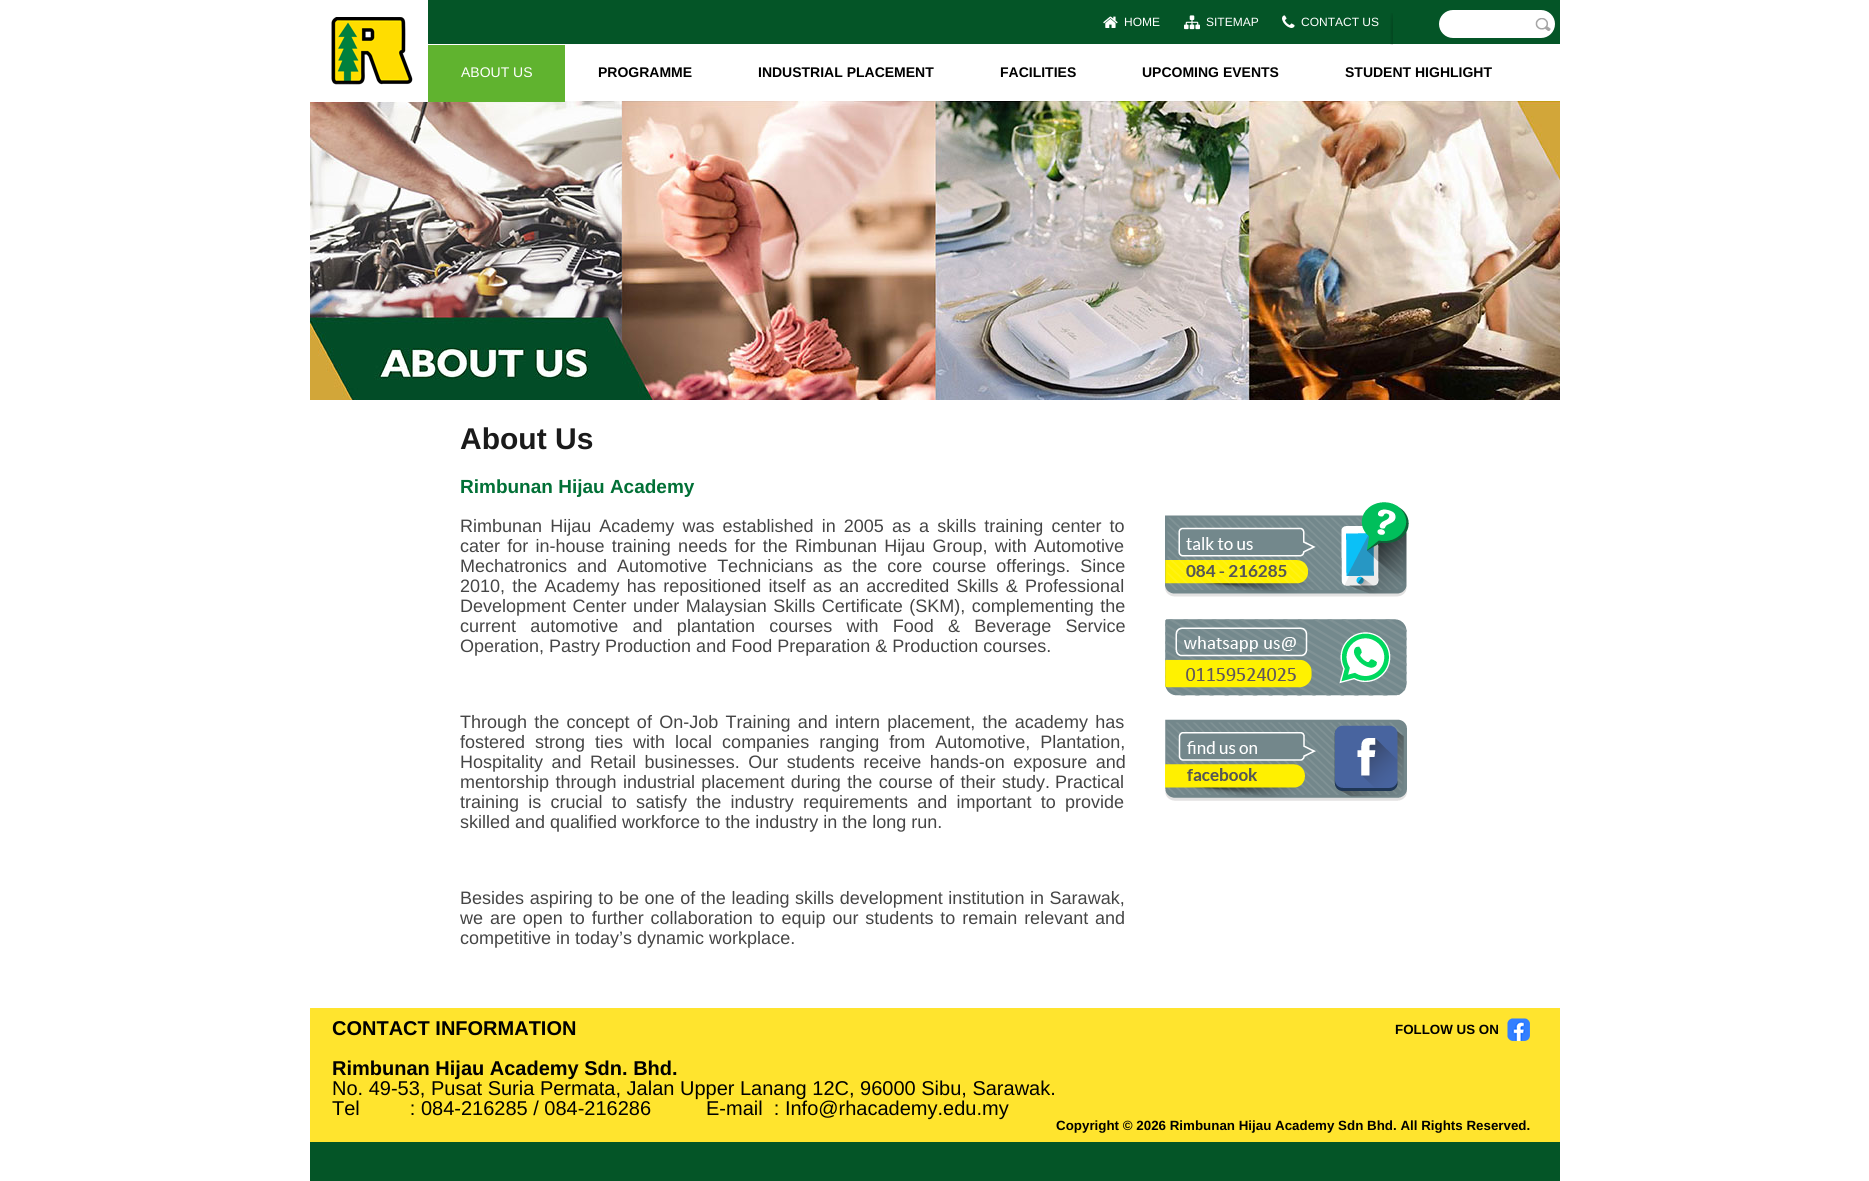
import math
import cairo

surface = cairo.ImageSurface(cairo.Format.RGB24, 1869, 1181)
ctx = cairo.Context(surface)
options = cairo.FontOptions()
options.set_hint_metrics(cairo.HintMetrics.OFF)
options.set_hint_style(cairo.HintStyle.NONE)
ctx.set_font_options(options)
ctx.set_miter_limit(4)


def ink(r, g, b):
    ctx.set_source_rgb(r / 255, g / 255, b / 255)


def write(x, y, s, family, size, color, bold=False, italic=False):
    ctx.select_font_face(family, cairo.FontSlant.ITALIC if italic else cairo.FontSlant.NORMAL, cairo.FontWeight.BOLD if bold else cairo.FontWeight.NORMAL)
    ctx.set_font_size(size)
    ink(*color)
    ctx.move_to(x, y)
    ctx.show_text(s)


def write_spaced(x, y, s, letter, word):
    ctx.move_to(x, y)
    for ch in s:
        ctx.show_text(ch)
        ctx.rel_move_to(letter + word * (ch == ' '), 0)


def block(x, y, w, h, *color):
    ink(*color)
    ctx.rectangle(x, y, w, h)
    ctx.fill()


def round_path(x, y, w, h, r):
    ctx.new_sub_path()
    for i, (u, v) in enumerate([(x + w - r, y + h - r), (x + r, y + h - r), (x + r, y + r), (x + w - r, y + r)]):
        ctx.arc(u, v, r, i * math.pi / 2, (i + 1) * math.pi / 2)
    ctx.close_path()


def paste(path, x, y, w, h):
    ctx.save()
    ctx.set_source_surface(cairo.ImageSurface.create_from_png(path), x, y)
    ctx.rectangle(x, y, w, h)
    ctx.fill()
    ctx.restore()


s1 = dict(family="Liberation Sans", size=12, color=(255, 255, 255))
s2 = dict(family="Liberation Sans", size=14, color=(255, 255, 255))
s3 = dict(family="Liberation Sans", size=14, color=(0, 0, 0), bold=True)
s4 = dict(family="Liberation Sans", size=30, color=(26, 26, 26), bold=True)
s5 = dict(family="Liberation Sans", size=19, color=(1, 112, 54), bold=True)
s6 = dict(family="Liberation Sans", size=18, color=(69, 69, 69))
s7 = dict(family="Liberation Sans", size=20, color=(0, 0, 0), bold=True)
s8 = dict(family="Liberation Sans", size=13.35, color=(0, 0, 0), bold=True)
s9 = dict(family="Liberation Sans", size=20, color=(0, 0, 0))

ink(255, 255, 255)
ctx.paint()
block(428, 0, 1132, 44, 4, 85, 39)
paste("pic7.png", 310, 101, 1250, 299)
block(310, 101, 118, 1, 255, 255, 255)
paste("pic1.png", 331, 17, 82, 68)
paste("pic2.png", 1390, 13, 3, 32)
paste("pic3.png", 1103, 16, 15, 12)
write(1124, 26, "HOME", **s1)
paste("pic4.png", 1184, 15, 16, 15)
write(1206, 26, "SITEMAP", **s1)
paste("pic5.png", 1282, 15, 13, 13)
write(1301, 26, "CONTACT US", **s1)
round_path(1439, 10, 116, 28, 14)
ctx.fill()
paste("pic6.png", 1535, 18, 16, 13)
block(428, 45, 137, 57, 96, 179, 47)
write(461, 77, "ABOUT US", **s2)
write(598, 77, "PROGRAMME", **s3)
write(758, 77, "INDUSTRIAL PLACEMENT", **s3)
write(1000, 77, "FACILITIES", **s3)
write(1142, 77, "UPCOMING EVENTS", **s3)
write(1345, 77, "STUDENT HIGHLIGHT", **s3)
write(460, 449, "About Us", **s4)
write(460, 493, "Rimbunan Hijau Academy", **s5)
ctx.select_font_face("Liberation Sans")
ctx.set_font_size(18)
ink(69, 69, 69)
write_spaced(460, 532, "Rimbunan Hijau Academy was established in 2005 as a skills training center to", 0, 3.1)
write_spaced(460, 552, "cater for in-house training needs for the Rimbunan Hijau Group, with Automotive", 0, 2.25)
write_spaced(460, 572, "Mechatronics and Automotive Technicians as the core course offerings. Since", 0, 5)
write_spaced(460, 592, "2010, the Academy has repositioned itself as an accredited Skills & Professional", 0, 2.25)
write_spaced(460, 612, "Development Center under Malaysian Skills Certificate (SKM), complementing the", 0, 1.5)
write_spaced(460, 632, "current automotive and plantation courses with Food & Beverage Service", 0, 9.25)
write(460, 652, "Operation, Pastry Production and Food Preparation & Production courses.", **s6)
write_spaced(460, 728, "Through the concept of On-Job Training and intern placement, the academy has", 0, 2.25)
write_spaced(460, 748, "fostered strong ties with local companies ranging from Automotive, Plantation,", 0, 5)
write_spaced(460, 768, "Hospitality and Retail businesses. Our students receive hands-on exposure and", 0, 3.5)
write_spaced(460, 788, "mentorship through industrial placement during the course of their study.", 0, 1.4)
write(1055, 788, "Practical", **s6)
write_spaced(460, 808, "training is crucial to satisfy the industry requirements and important to provide", 0, 4.25)
write(460, 828, "skilled and qualified workforce to the industry in the long run.", **s6)
write_spaced(460, 904, "Besides aspiring to be one of the leading skills development institution in Sarawak,", 0, 0.6)
write_spaced(460, 924, "we are open to further collaboration to equip our students to remain relevant and", 0, 1.9)
write(460, 944, "competitive in today’s dynamic workplace.", **s6)
paste("pic8.png", 1165, 502, 244, 95)
paste("pic9.png", 1165, 619, 242, 77)
paste("pic10.png", 1165, 719, 242, 82)
block(310, 1008, 1250, 134, 255, 228, 46)
write(332, 1035, "CONTACT INFORMATION", **s7)
write(1395, 1034, "FOLLOW US ON", **s8)
paste("pic11.png", 1507, 1018, 23, 23)
write(332, 1075, "Rimbunan Hijau Academy Sdn. Bhd.", **s7)
write(332, 1095, "No. 49-53, Pusat Suria Permata, Jalan Upper Lanang 12C, 96000 Sibu, Sarawak.", **s9)
write(332, 1115, "Tel         : 084-216285 / 084-216286", **s9)
write(706, 1115, "E-mail  : Info@rhacademy.edu.my", **s9)
write(1056, 1130, "Copyright © 2026 Rimbunan Hijau Academy Sdn Bhd. All Rights Reserved.", **s8)
block(310, 1142, 1250, 39, 4, 85, 39)
surface.write_to_png("screenshot.png")
